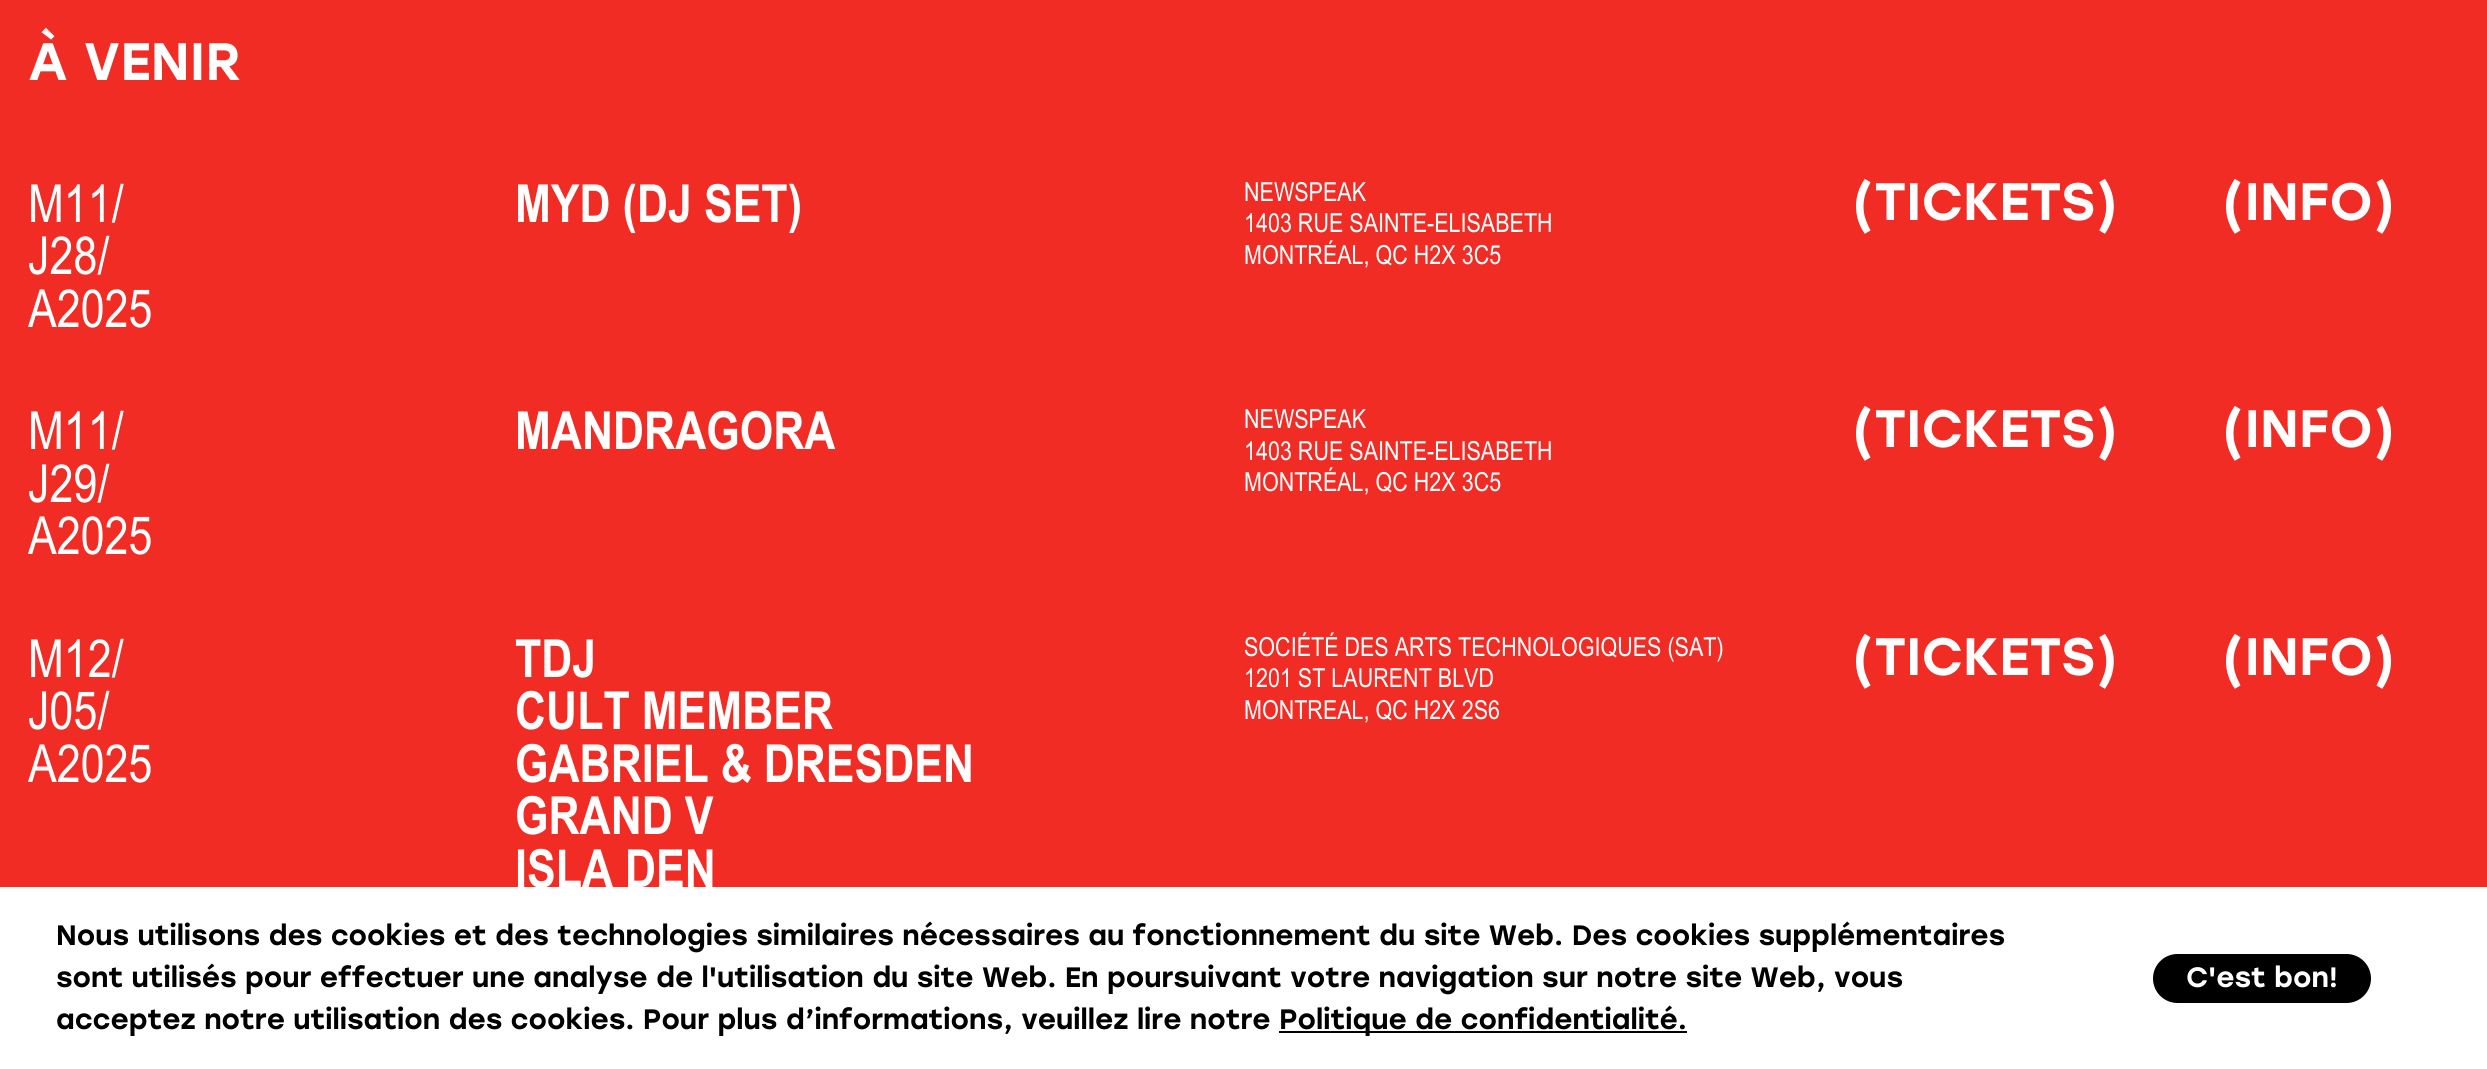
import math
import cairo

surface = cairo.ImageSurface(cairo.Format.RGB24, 2487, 1069)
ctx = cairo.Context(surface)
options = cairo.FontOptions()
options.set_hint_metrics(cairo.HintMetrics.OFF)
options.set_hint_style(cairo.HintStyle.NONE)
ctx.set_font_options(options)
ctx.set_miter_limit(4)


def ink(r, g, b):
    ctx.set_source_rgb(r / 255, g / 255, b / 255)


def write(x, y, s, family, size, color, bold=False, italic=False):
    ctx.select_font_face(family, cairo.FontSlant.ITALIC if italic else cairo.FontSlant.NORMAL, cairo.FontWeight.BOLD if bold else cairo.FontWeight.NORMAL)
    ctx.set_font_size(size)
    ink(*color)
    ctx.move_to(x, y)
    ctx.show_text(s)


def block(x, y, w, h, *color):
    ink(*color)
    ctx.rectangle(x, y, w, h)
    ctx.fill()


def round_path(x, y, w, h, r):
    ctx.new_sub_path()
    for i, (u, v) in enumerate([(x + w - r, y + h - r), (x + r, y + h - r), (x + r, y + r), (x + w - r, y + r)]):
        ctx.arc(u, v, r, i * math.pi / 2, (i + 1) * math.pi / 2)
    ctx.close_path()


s1 = dict(family="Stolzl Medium", size=52.5, color=(255, 255, 255))
s2 = dict(family="Arial", size=52.5, color=(255, 255, 255))
s3 = dict(family="Arial", size=52.5, color=(255, 255, 255), bold=True)
s4 = dict(family="Arial", size=26.25, color=(255, 255, 255))
s5 = dict(family="Stolzl Medium", size=28, color=(0, 0, 0))
s6 = dict(family="Stolzl Medium", size=28, color=(255, 255, 255))

ink(241, 44, 36)
ctx.paint()
write(28, 80, "À VENIR", **s1)
write(28, 222, "M11/", **s2)
write(28, 274, "J28/", **s2)
write(28, 327, "A2025", **s2)
write(515, 222, "MYD (DJ SET)", **s3)
write(1244, 201, "NEWSPEAK", **s4)
write(1244, 232, "1403 RUE SAINTE-ELISABETH", **s4)
write(1244, 264, "MONTRÉAL, QC H2X 3C5", **s4)
write(1852, 220, "(TICKETS)", **s1)
write(2222, 220, "(INFO)", **s1)
write(28, 449, "M11/", **s2)
write(28, 502, "J29/", **s2)
write(28, 554, "A2025", **s2)
write(515, 449, "MANDRAGORA", **s3)
write(1244, 428, "NEWSPEAK", **s4)
write(1244, 460, "1403 RUE SAINTE-ELISABETH", **s4)
write(1244, 491, "MONTRÉAL, QC H2X 3C5", **s4)
write(1852, 447, "(TICKETS)", **s1)
write(2222, 447, "(INFO)", **s1)
write(28, 677, "M12/", **s2)
write(28, 729, "J05/", **s2)
write(28, 782, "A2025", **s2)
write(515, 677, "TDJ", **s3)
write(515, 729, "CULT MEMBER", **s3)
write(515, 782, "GABRIEL & DRESDEN", **s3)
write(515, 834, "GRAND V", **s3)
write(515, 887, "ISLA DEN", **s3)
write(1244, 656, "SOCIÉTÉ DES ARTS TECHNOLOGIQUES (SAT)", **s4)
write(1244, 687, "1201 ST LAURENT BLVD", **s4)
write(1244, 719, "MONTREAL, QC H2X 2S6", **s4)
write(1852, 675, "(TICKETS)", **s1)
write(2222, 675, "(INFO)", **s1)
block(0, 887, 2487, 182, 255, 255, 255)
write(56, 945, "Nous utilisons des cookies et des technologies similaires nécessaires au fonctionnement du site Web. Des cookies supplémentaires", **s5)
write(56, 987, "sont utilisés pour effectuer une analyse de l'utilisation du site Web. En poursuivant votre navigation sur notre site Web, vous", **s5)
write(56, 1029, "acceptez notre utilisation des cookies. Pour plus d’informations, veuillez lire notre", **s5)
block(1279, 1031, 408, 2, 0, 0, 0)
write(1279, 1029, "Politique de confidentialité.", **s5)
round_path(2153, 954, 218, 49, 24.5)
ctx.fill()
write(2186, 987, "C'est bon!", **s6)
surface.write_to_png("screenshot.png")
